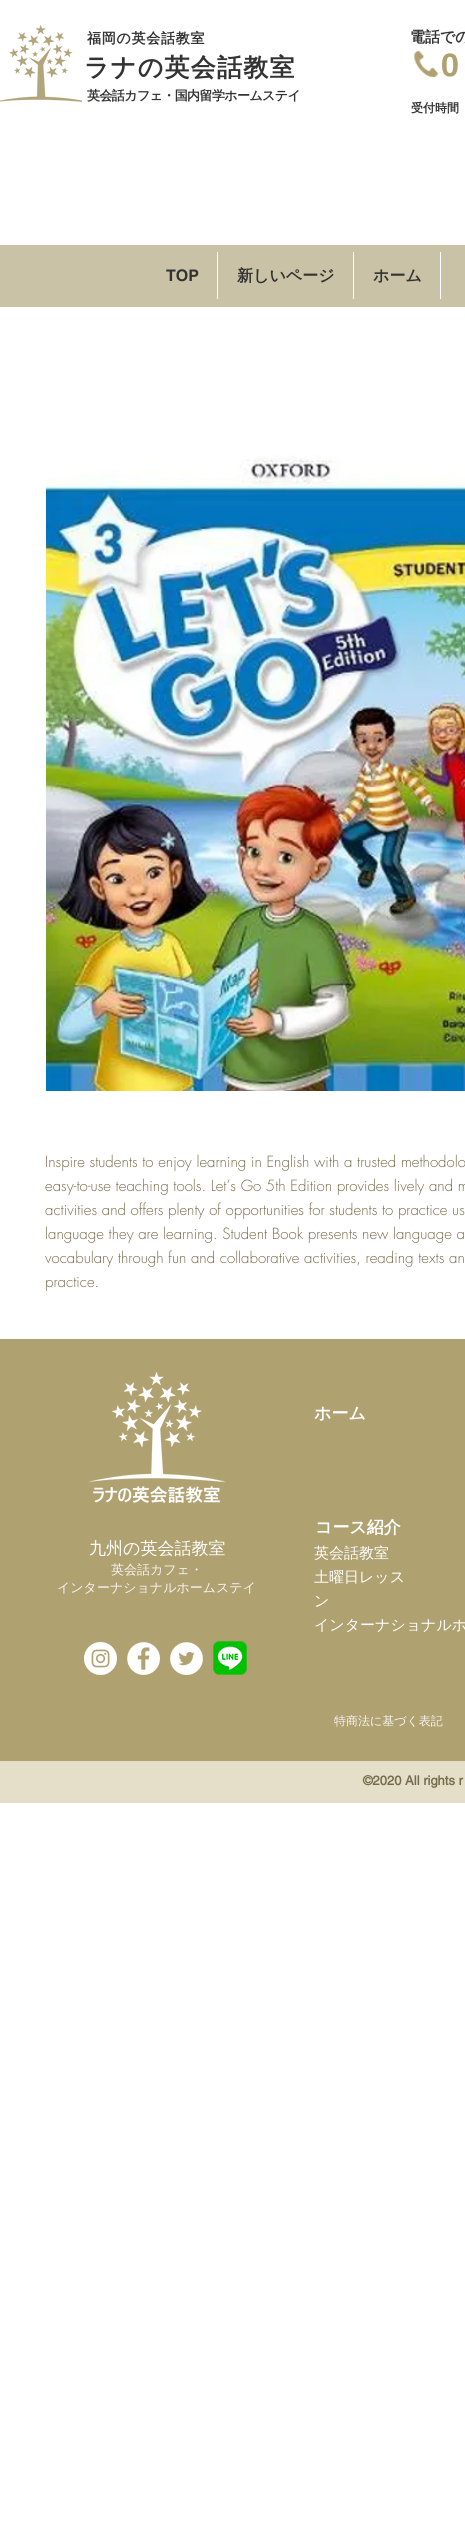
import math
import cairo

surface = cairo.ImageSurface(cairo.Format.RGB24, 465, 2529)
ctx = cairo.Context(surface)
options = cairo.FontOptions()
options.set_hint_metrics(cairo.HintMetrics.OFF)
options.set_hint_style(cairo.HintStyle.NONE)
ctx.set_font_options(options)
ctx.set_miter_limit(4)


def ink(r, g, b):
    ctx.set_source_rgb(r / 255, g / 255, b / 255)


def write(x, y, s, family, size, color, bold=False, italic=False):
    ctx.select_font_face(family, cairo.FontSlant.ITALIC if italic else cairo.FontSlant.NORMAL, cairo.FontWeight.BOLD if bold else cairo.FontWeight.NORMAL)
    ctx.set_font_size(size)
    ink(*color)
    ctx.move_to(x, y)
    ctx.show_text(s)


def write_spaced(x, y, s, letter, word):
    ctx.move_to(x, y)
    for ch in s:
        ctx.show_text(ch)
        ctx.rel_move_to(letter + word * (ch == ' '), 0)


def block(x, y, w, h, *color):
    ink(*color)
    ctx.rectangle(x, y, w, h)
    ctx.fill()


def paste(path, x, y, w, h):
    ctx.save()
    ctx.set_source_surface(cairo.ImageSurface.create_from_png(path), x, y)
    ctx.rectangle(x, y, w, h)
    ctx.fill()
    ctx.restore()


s1 = dict(family="WenQuanYi Zen Hei", size=15, color=(51, 51, 51), bold=True)
s2 = dict(family="helvetica", size=32, color=(176, 161, 113), bold=True)
s3 = dict(family="WenQuanYi Zen Hei", size=12, color=(51, 51, 51), bold=True)
s4 = dict(family="helvetica", size=16, color=(51, 51, 51), bold=True)
s5 = dict(family="WenQuanYi Zen Hei", size=16, color=(51, 51, 51), bold=True)
s6 = dict(family="futura Light", size=15, color=(117, 107, 75))
s7 = dict(family="WenQuanYi Zen Hei Medium", size=17, color=(255, 255, 255))
s8 = dict(family="WenQuanYi Zen Hei Medium", size=13, color=(246, 245, 245))
s9 = dict(family="WenQuanYi Zen Hei", size=17, color=(255, 255, 255), bold=True)
s10 = dict(family="WenQuanYi Zen Hei Medium", size=15, color=(255, 255, 255))
s11 = dict(family="WenQuanYi Zen Hei Medium", size=12, color=(246, 245, 245))
s12 = dict(family="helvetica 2", size=13, color=(117, 107, 75), bold=True)

ink(255, 255, 255)
ctx.paint()
paste("pic1.png", 0, 25, 82, 77)
ctx.select_font_face("WenQuanYi Zen Hei", cairo.FontSlant.NORMAL, cairo.FontWeight.BOLD)
ctx.set_font_size(14)
ink(51, 51, 51)
write_spaced(87, 43, "福岡の英会話教室", 0.75, 0)
ctx.set_font_size(25)
write_spaced(84, 76, "ラナの英会話教室", 1.25, 0)
ctx.set_font_size(13)
write_spaced(87, 100, "英会話カフェ・国内留学ホームステイ", -0.6, 0)
write(410, 42, "電話での", **s1)
paste("pic2.png", 413, 50, 26, 28)
write(441, 76, "0", **s2)
write(411, 112, "受付時間", **s3)
block(0, 245, 465, 62, 202, 194, 166)
write(166, 281, "TOP", **s4)
block(217, 252, 1, 47, 255, 255, 255)
write(237, 281, "新しいページ", **s5)
block(353, 252, 1, 47, 255, 255, 255)
write(373, 281, "ホーム", **s5)
block(440, 252, 1, 47, 255, 255, 255)
paste("pic3.png", 46, 455, 419, 636)
write(45, 1167, "Inspire students to enjoy learning in English with a trusted methodolo", **s6)
write(45, 1191, "easy-to-use teaching tools. Let’s Go 5th Edition provides lively and m", **s6)
write(45, 1215, "activities and offers plenty of opportunities for students to practice us", **s6)
write(45, 1239, "language they are learning. Student Book presents new language a", **s6)
write(45, 1263, "vocabulary through fun and collaborative activities, reading texts an", **s6)
write(45, 1287, "practice.", **s6)
block(0, 1339, 465, 422, 176, 161, 113)
paste("pic4.png", 88, 1371, 138, 132)
write(89, 1554, "九州の英会話教室", **s7)
write(111, 1574, "英会話カフェ・", **s8)
write(57, 1592, "インターナショナルホームステイ", **s8)
paste("pic5.png", 84, 1642, 33, 33)
paste("pic6.png", 127, 1642, 33, 33)
paste("pic7.png", 170, 1642, 33, 33)
paste("pic8.png", 211, 1639, 38, 38)
write(314, 1419, "ホーム", **s9)
write(315, 1533, "コース紹介", **s9)
write(314, 1558, "英会話教室", **s10)
write(314, 1582, "土曜日レッス", **s10)
write(314, 1606, "ン", **s10)
write(314, 1630, "インターナショナルホ", **s10)
write(334, 1725, "特商法に基づく表記", **s11)
block(0, 1761, 465, 42, 229, 222, 201)
write(363, 1785, "©2020 All rights r", **s12)
surface.write_to_png("screenshot.png")
